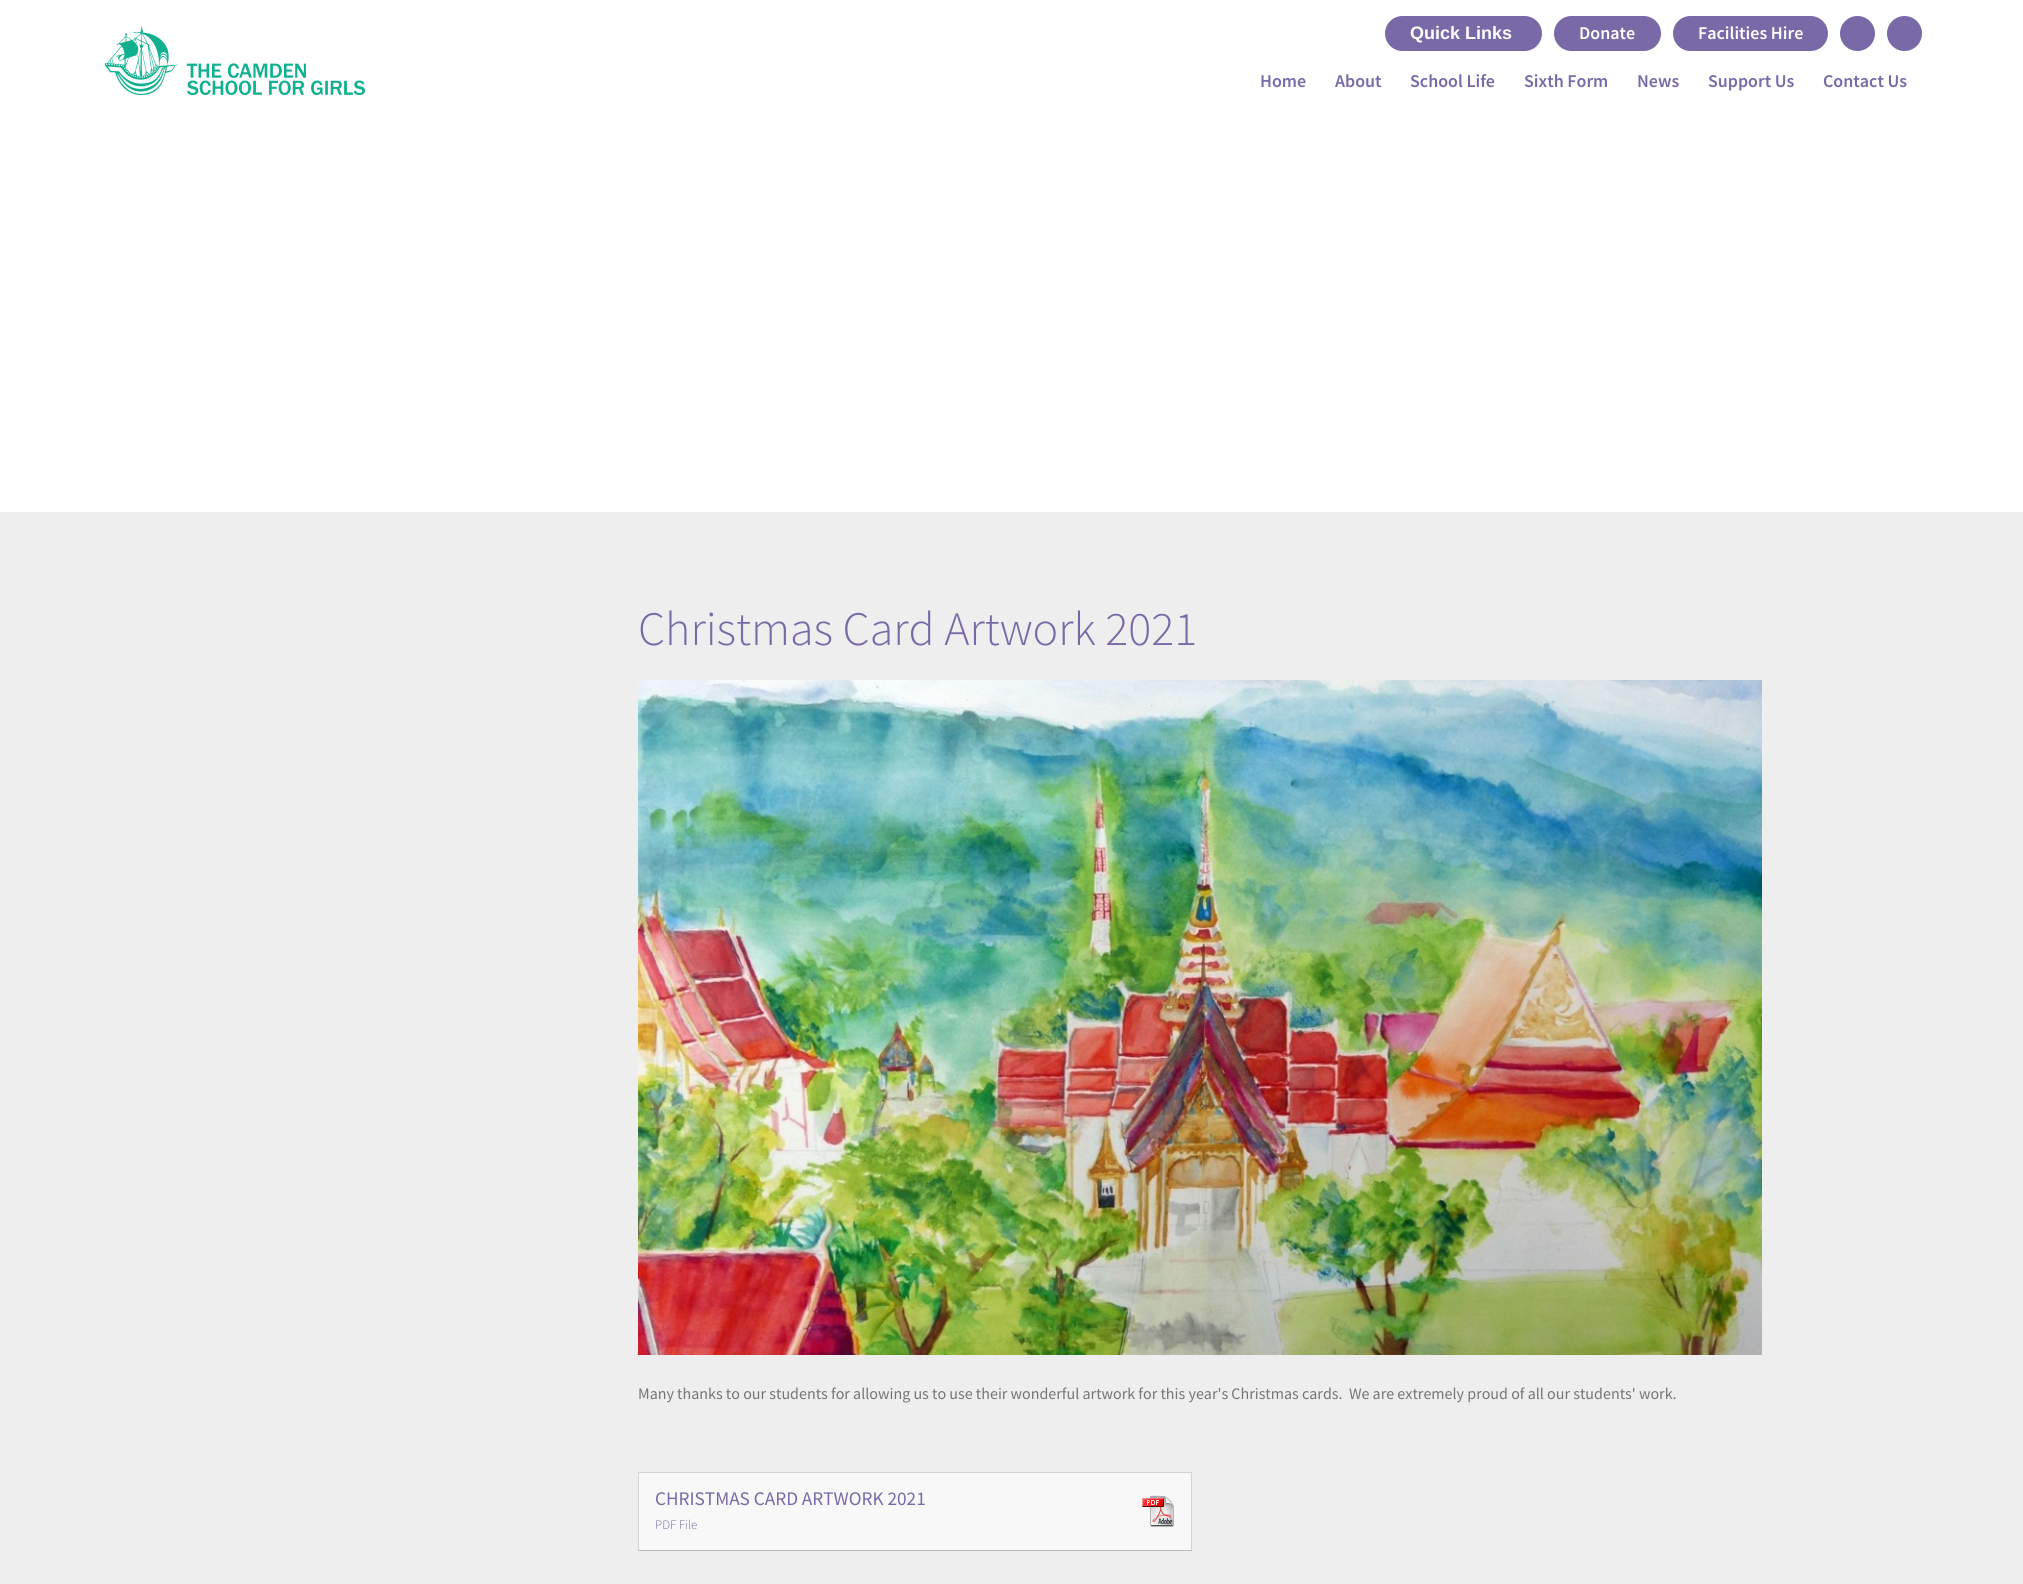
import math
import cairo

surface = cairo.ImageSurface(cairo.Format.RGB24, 2023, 1584)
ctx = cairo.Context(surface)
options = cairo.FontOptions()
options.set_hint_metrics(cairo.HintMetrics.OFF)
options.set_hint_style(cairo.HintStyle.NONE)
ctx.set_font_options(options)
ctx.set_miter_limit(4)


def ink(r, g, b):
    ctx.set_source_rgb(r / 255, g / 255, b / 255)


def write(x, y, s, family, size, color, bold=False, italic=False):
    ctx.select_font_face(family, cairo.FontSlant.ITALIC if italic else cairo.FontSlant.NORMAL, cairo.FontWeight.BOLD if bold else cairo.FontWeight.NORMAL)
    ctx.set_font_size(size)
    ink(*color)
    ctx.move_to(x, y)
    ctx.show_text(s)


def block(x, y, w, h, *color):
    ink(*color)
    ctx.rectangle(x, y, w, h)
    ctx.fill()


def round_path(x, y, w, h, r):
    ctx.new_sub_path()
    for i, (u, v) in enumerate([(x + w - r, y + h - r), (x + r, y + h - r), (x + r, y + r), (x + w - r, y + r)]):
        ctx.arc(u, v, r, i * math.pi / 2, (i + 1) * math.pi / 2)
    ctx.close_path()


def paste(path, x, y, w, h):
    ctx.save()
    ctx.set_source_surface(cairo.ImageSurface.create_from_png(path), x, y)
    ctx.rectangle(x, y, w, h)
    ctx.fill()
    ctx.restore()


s1 = dict(family="Liberation Sans", size=18, color=(255, 255, 255), bold=True)
s2 = dict(family="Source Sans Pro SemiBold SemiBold", size=18, color=(255, 255, 255))
s3 = dict(family="Source Sans Pro SemiBold SemiBold", size=18, color=(121, 105, 167))
s4 = dict(family="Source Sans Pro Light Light", size=48, color=(121, 105, 167))
s5 = dict(family="Source Sans Pro", size=16, color=(117, 117, 117))
s6 = dict(family="Source Sans Pro", size=19.25, color=(121, 105, 167))
s7 = dict(family="Source Sans Pro Light Light", size=13, color=(121, 105, 167))

ink(238, 238, 238)
ctx.paint()
block(0, 0, 2023, 512, 255, 255, 255)
paste("pic1.png", 103, 26, 262, 70)
ink(121, 105, 167)
round_path(1385, 16, 157, 35, 17.5)
ctx.fill()
write(1410, 39, "Quick Links", **s1)
ink(121, 105, 167)
round_path(1554, 16, 107, 35, 17.5)
ctx.fill()
write(1579, 39, "Donate", **s2)
ink(121, 105, 167)
round_path(1673, 16, 155, 35, 17.5)
ctx.fill()
write(1698, 39, "Facilities Hire", **s2)
ink(121, 105, 167)
ctx.new_path()
ctx.arc(1857.5, 33.5, 17.5, 0, 2 * math.pi)
ctx.fill()
ctx.arc(1904.5, 33.5, 17.5, 0, 2 * math.pi)
ctx.fill()
write(1260, 87, "Home", **s3)
write(1335, 87, "About", **s3)
write(1410, 87, "School Life", **s3)
write(1524, 87, "Sixth Form", **s3)
write(1637, 87, "News", **s3)
write(1708, 87, "Support Us", **s3)
write(1823, 87, "Contact Us", **s3)
write(638, 645, "Christmas Card Artwork 2021", **s4)
paste("pic2.png", 638, 680, 1124, 675)
write(638, 1399, "Many thanks to our students for allowing us to use their wonderful artwork for this year's Christmas cards.  We are extremely proud of all our students' work.", **s5)
block(638, 1472, 554, 79, 248, 248, 248)
ink(211, 211, 211)
ctx.new_path()
ctx.move_to(638, 1472)
ctx.line_to(1192, 1472)
ctx.line_to(1191, 1473)
ctx.line_to(639, 1473)
ctx.close_path()
ctx.fill()
ctx.set_source_rgba(0, 0, 0, 0.15)
ctx.new_path()
ctx.move_to(1192, 1472)
ctx.line_to(1192, 1551)
ctx.line_to(1191, 1550)
ctx.line_to(1191, 1473)
ctx.close_path()
ctx.fill()
ctx.set_source_rgba(0, 0, 0, 0.25)
ctx.new_path()
ctx.move_to(1192, 1551)
ctx.line_to(638, 1551)
ctx.line_to(639, 1550)
ctx.line_to(1191, 1550)
ctx.close_path()
ctx.fill()
ctx.set_source_rgba(0, 0, 0, 0.15)
ctx.new_path()
ctx.move_to(638, 1551)
ctx.line_to(638, 1472)
ctx.line_to(639, 1473)
ctx.line_to(639, 1550)
ctx.close_path()
ctx.fill()
write(655, 1505, "CHRISTMAS CARD ARTWORK 2021", **s6)
write(655, 1529, "PDF File", **s7)
paste("pic3.png", 1142, 1495, 32, 32)
surface.write_to_png("screenshot.png")
